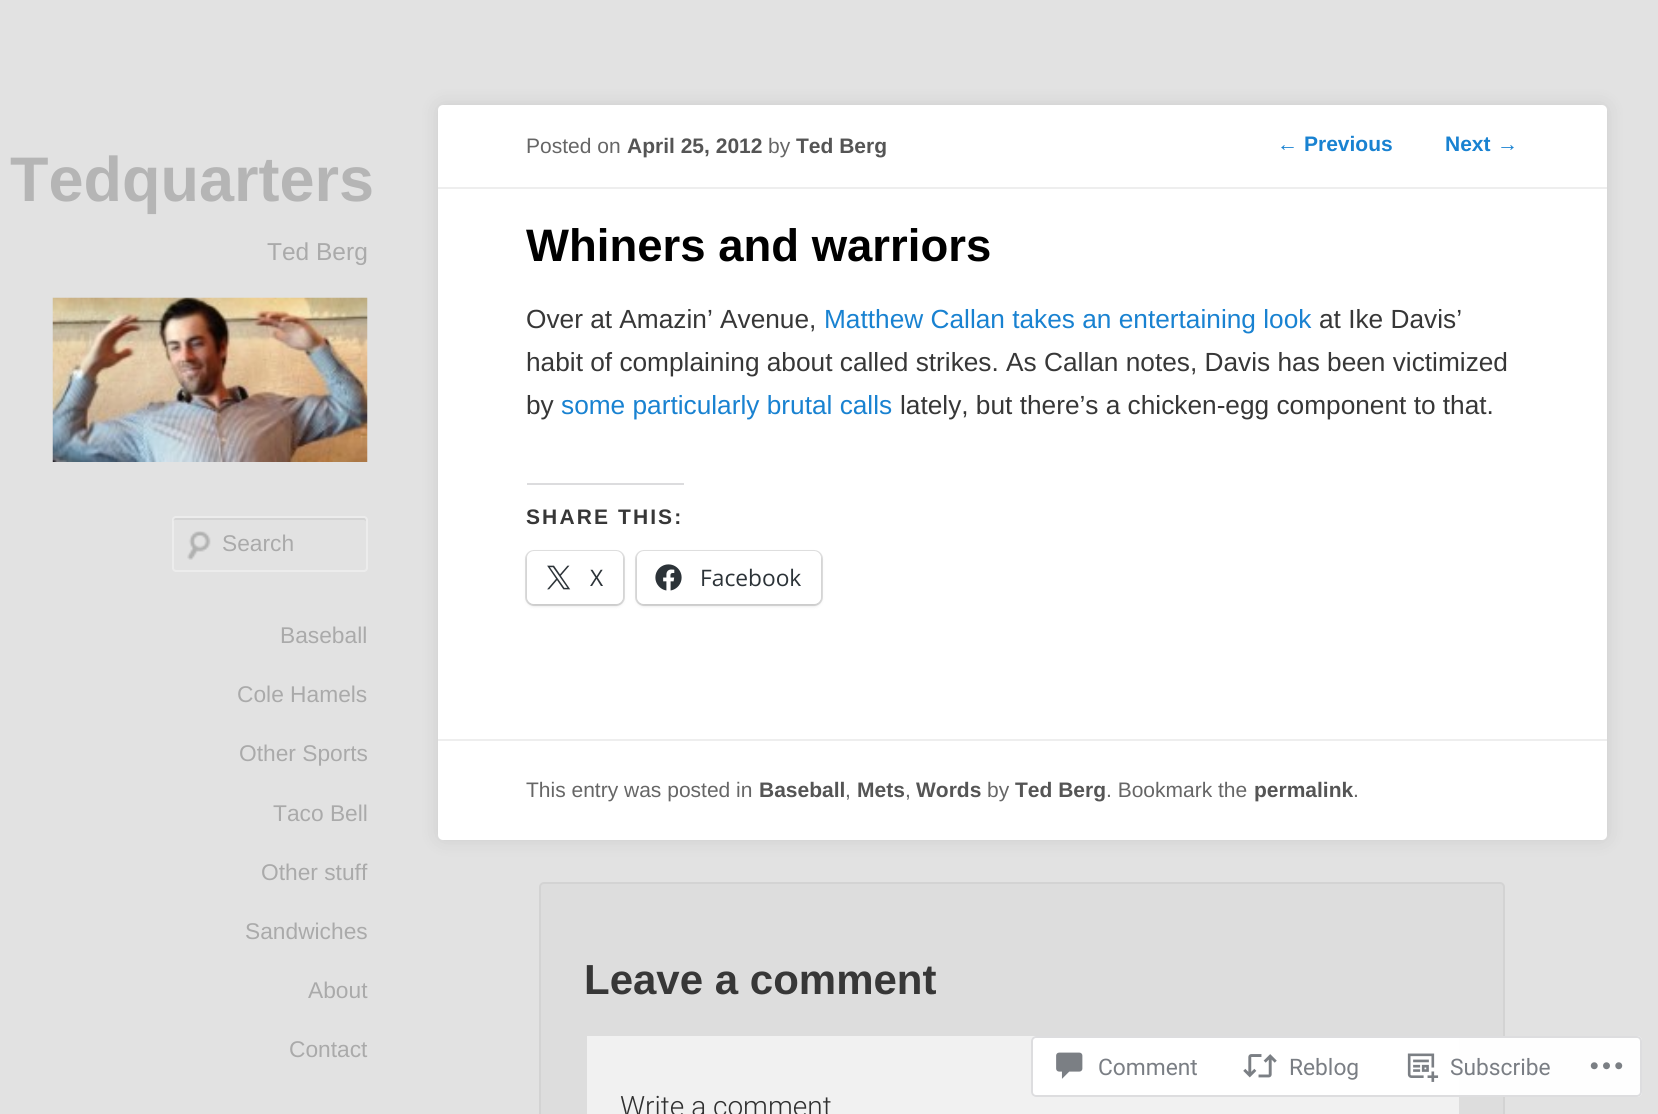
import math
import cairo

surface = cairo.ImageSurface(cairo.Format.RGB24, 1658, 1114)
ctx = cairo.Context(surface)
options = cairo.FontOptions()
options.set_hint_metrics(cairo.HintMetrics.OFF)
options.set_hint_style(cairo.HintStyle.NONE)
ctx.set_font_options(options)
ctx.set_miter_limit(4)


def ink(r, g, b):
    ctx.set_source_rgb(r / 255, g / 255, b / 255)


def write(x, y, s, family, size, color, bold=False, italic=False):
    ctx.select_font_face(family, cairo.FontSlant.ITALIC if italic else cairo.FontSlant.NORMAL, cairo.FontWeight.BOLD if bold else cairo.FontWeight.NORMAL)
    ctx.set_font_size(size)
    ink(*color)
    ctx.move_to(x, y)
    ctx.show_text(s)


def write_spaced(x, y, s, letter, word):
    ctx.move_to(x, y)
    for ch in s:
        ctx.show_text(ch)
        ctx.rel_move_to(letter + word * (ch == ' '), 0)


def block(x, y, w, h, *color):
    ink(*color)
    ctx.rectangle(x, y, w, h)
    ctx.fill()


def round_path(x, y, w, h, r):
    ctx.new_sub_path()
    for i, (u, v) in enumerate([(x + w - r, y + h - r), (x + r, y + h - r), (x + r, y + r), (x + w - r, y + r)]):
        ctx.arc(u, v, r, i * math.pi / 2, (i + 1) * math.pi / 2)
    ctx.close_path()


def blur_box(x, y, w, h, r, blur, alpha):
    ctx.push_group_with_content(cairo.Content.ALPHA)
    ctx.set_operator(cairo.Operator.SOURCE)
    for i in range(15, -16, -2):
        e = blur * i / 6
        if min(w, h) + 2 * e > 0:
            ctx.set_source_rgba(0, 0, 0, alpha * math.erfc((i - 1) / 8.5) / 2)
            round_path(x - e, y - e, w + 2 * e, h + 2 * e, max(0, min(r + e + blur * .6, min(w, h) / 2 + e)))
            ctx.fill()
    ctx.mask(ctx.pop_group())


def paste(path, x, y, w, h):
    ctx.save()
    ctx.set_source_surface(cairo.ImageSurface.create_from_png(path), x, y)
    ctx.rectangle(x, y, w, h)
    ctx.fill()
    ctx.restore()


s1 = dict(family="Liberation Sans", size=63, color=(181, 181, 181), bold=True)
s2 = dict(family="Liberation Sans", size=24.5, color=(170, 170, 170))
s3 = dict(family="Liberation Sans", size=22.75, color=(170, 170, 170))
s4 = dict(family="Liberation Sans", size=21, color=(25, 130, 209))
s5 = dict(family="Liberation Sans", size=21, color=(25, 130, 209), bold=True)
s6 = dict(family="Liberation Sans", size=21, color=(102, 102, 102))
s7 = dict(family="Liberation Sans", size=21, color=(85, 85, 85), bold=True)
s8 = dict(family="Liberation Sans", size=45.5, color=(0, 0, 0), bold=True)
s9 = dict(family="Liberation Sans", size=26.25, color=(55, 55, 55))
s10 = dict(family="Liberation Sans", size=26.25, color=(25, 130, 209))
s11 = dict(family="Open Sans", size=22.75, color=(44, 51, 56))
s12 = dict(family="Liberation Sans", size=42, color=(55, 55, 55), bold=True)
s13 = dict(family="Roboto Light", size=28, color=(48, 48, 48))
s14 = dict(family="Roboto", size=22.75, color=(122, 126, 132))

ink(226, 226, 226)
ctx.paint()
write(10, 201, "Tedquarters", **s1)
write(267, 260, "Ted Berg", **s2)
paste("pic1.png", 52, 297, 316, 165)
paste("pic2.png", 187, 531, 24, 29)
ink(212, 212, 212)
ctx.new_path()
ctx.move_to(175, 520)
ctx.line_to(364, 520)
ctx.line_to(366, 521)
ctx.line_to(366, 522)
ctx.curve_to(366, 520, 366, 518, 364, 518)
ctx.line_to(175, 518)
ctx.curve_to(173, 518, 173, 520, 173, 522)
ctx.curve_to(173, 521, 174, 520, 175, 520)
ctx.close_path()
ctx.fill()
round_path(173, 517, 194, 54, 3)
ctx.set_source_rgba(0.953, 0.953, 0.953, 0.6)
ctx.stroke()
write(222, 551, "Search", **s3)
write(280, 643, "Baseball", **s3)
write(237, 702, "Cole Hamels", **s3)
write(239, 761, "Other Sports", **s3)
write(273, 821, "Taco Bell", **s3)
write(261, 880, "Other stuff", **s3)
write(245, 939, "Sandwiches", **s3)
write(308, 998, "About", **s3)
write(289, 1057, "Contact", **s3)
ink(0, 0, 0)
blur_box(438, 105, 1169, 735, 5, 9, 0.1)
ink(255, 255, 255)
round_path(438, 105, 1169, 735, 5)
ctx.fill()
write(1277, 151, "←", **s4)
write(1304, 151, "Previous", **s5)
write(1445, 151, "Next", **s5)
write(1497, 151, "→", **s4)
block(438, 187, 1169, 2, 238, 238, 238)
write(526, 153, "Posted on", **s6)
write(627, 153, "April 25, 2012", **s7)
write(768, 153, "by", **s6)
write(796, 153, "Ted Berg", **s7)
write(526, 261, "Whiners and warriors", **s8)
block(438, 739, 1169, 2, 238, 238, 238)
write(526, 328, "Over at Amazin’ Avenue,", **s9)
write(824, 328, "Matthew Callan takes an entertaining look", **s10)
write(1319, 328, "at Ike Davis’", **s9)
write(526, 371, "habit of complaining about called strikes. As Callan notes, Davis has been victimized", **s9)
write(526, 414, "by", **s9)
write(561, 414, "some particularly brutal calls", **s10)
write(900, 414, "lately, but there’s a chicken-egg component to that.", **s9)
block(527, 483, 157, 2, 220, 220, 222)
ctx.select_font_face("Liberation Sans", cairo.FontSlant.NORMAL, cairo.FontWeight.BOLD)
ctx.set_font_size(21)
ink(55, 55, 55)
write_spaced(526, 524, "SHARE THIS:", 2.1, 0)
round_path(526, 551, 98, 54, 8)
ink(224, 224, 224)
ctx.stroke()
ink(0, 0, 0)
blur_box(527, 553, 96, 53, 7, 2, 0.12)
ink(255, 255, 255)
round_path(527, 551, 96, 53, 7)
ctx.fill()
paste("pic3.png", 547, 565, 24, 25)
write(590, 586, "X", **s11)
round_path(636, 551, 186, 54, 8)
ink(224, 224, 224)
ctx.stroke()
ink(0, 0, 0)
blur_box(637, 553, 184, 53, 7, 2, 0.12)
ink(255, 255, 255)
round_path(637, 551, 184, 53, 7)
ctx.fill()
paste("pic4.png", 655, 564, 27, 27)
write(700, 586, "Facebook", **s11)
write(526, 797, "This entry was posted in", **s6)
write(759, 797, "Baseball", **s7)
write(845, 797, ",", **s6)
write(857, 797, "Mets", **s7)
write(905, 797, ",", **s6)
write(916, 797, "Words", **s7)
write(987, 797, "by", **s6)
write(1015, 797, "Ted Berg", **s7)
write(1106, 797, ". Bookmark the", **s6)
write(1254, 797, "permalink", **s7)
write(1353, 797, ".", **s6)
ink(221, 221, 221)
round_path(540, 883, 964, 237, 4)
ctx.fill_preserve()
ink(211, 211, 211)
ctx.stroke()
write(584, 994, "Leave a comment", **s12)
block(587, 1036, 872, 78, 241, 241, 241)
write(620, 1116, "Write a comment", **s13)
ctx.set_source_rgba(1, 1, 1, 0.98)
round_path(1031, 1036, 611, 61, 5)
ctx.fill()
round_path(1032, 1037, 609, 59, 4)
ctx.set_source_rgba(0.863, 0.863, 0.871, 0.98)
ctx.stroke()
paste("pic5.png", 1056, 1052, 27, 27)
write(1098, 1075, "Comment", **s14)
paste("pic6.png", 1243, 1054, 34, 24)
write(1289, 1075, "Reblog", **s14)
paste("pic7.png", 1407, 1053, 32, 29)
write(1450, 1075, "Subscribe", **s14)
paste("pic8.png", 1590, 1062, 33, 8)
surface.write_to_png("screenshot.png")
